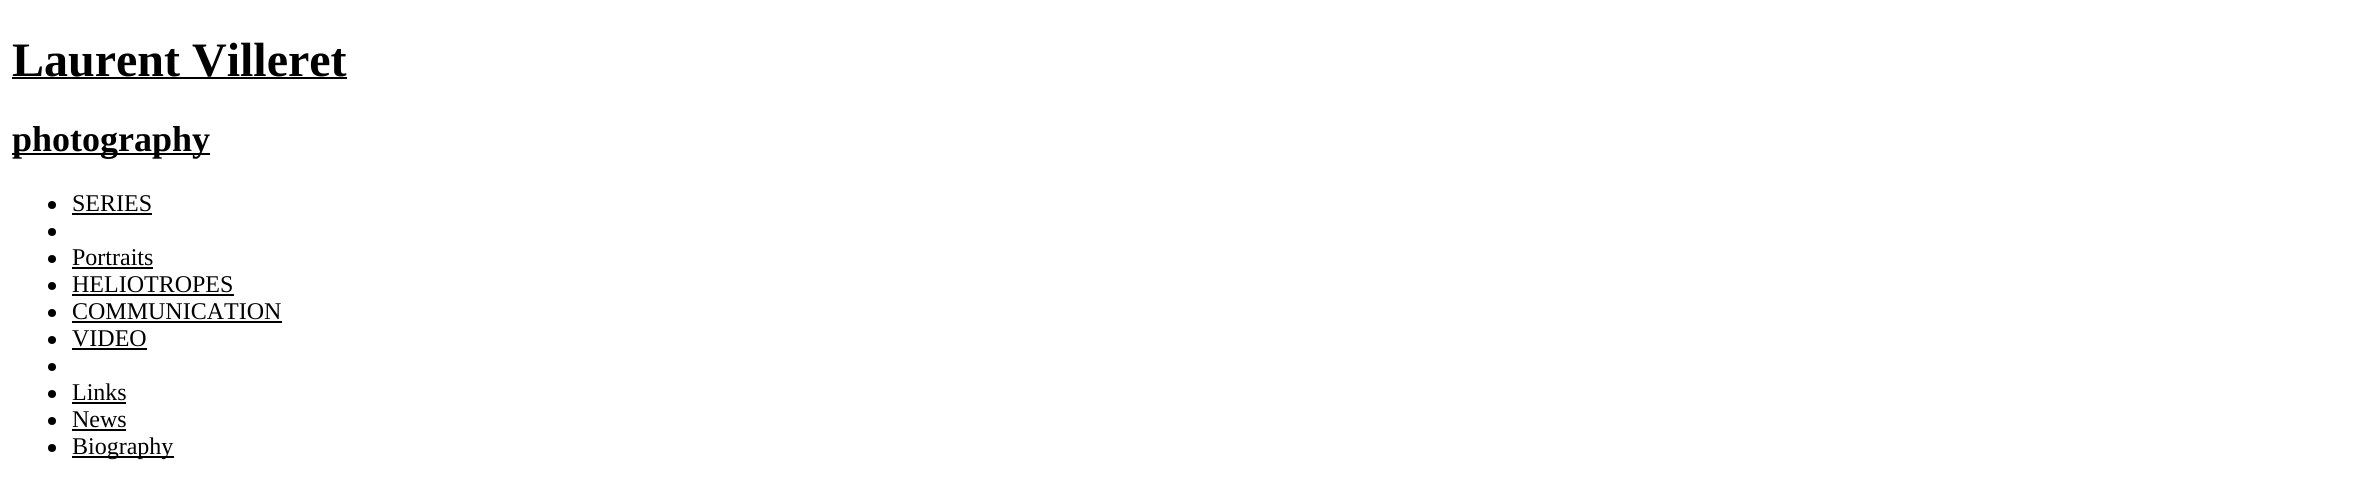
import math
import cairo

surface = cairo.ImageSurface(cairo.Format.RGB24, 2378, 477)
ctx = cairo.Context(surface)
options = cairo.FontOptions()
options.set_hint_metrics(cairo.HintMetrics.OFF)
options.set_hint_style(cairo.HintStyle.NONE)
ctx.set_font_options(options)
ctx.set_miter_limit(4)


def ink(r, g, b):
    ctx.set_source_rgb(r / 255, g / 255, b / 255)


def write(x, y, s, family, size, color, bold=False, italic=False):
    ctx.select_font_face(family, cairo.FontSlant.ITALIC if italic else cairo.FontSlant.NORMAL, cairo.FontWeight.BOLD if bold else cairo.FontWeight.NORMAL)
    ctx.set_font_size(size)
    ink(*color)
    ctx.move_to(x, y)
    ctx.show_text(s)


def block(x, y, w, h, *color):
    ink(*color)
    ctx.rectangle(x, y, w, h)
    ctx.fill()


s1 = dict(family="Liberation Serif", size=48, color=(0, 0, 0), bold=True)
s2 = dict(family="Liberation Serif", size=36, color=(0, 0, 0), bold=True)
s3 = dict(family="Liberation Serif", size=24, color=(0, 0, 0))

ink(255, 255, 255)
ctx.paint()
write(12, 76, "Laurent Villeret", **s1)
block(12, 77, 335, 2, 0, 0, 0)
block(12, 153, 198, 2, 0, 0, 0)
write(12, 151, "photography", **s2)
ctx.new_path()
ctx.arc(52, 205, 4, 0, 2 * math.pi)
ctx.fill()
write(72, 211, "SERIES", **s3)
block(72, 213, 80, 2, 0, 0, 0)
ctx.new_path()
ctx.arc(52, 232, 4, 0, 2 * math.pi)
ctx.fill()
ctx.arc(52, 259, 4, 0, 2 * math.pi)
ctx.fill()
write(72, 265, "Portraits", **s3)
block(72, 267, 81, 2, 0, 0, 0)
ctx.new_path()
ctx.arc(52, 286, 4, 0, 2 * math.pi)
ctx.fill()
write(72, 292, "HELIOTROPES", **s3)
block(72, 294, 162, 2, 0, 0, 0)
ctx.new_path()
ctx.arc(52, 313, 4, 0, 2 * math.pi)
ctx.fill()
write(72, 319, "COMMUNICATION", **s3)
block(72, 321, 210, 2, 0, 0, 0)
ctx.new_path()
ctx.arc(52, 340, 4, 0, 2 * math.pi)
ctx.fill()
write(72, 346, "VIDEO", **s3)
block(72, 348, 75, 2, 0, 0, 0)
ctx.new_path()
ctx.arc(52, 367, 4, 0, 2 * math.pi)
ctx.fill()
ctx.arc(52, 394, 4, 0, 2 * math.pi)
ctx.fill()
write(72, 400, "Links", **s3)
block(72, 402, 54, 2, 0, 0, 0)
ctx.new_path()
ctx.arc(52, 421, 4, 0, 2 * math.pi)
ctx.fill()
write(72, 427, "News", **s3)
block(72, 429, 54, 2, 0, 0, 0)
ctx.new_path()
ctx.arc(52, 448, 4, 0, 2 * math.pi)
ctx.fill()
block(72, 456, 102, 2, 0, 0, 0)
write(72, 454, "Biography", **s3)
surface.write_to_png("screenshot.png")
